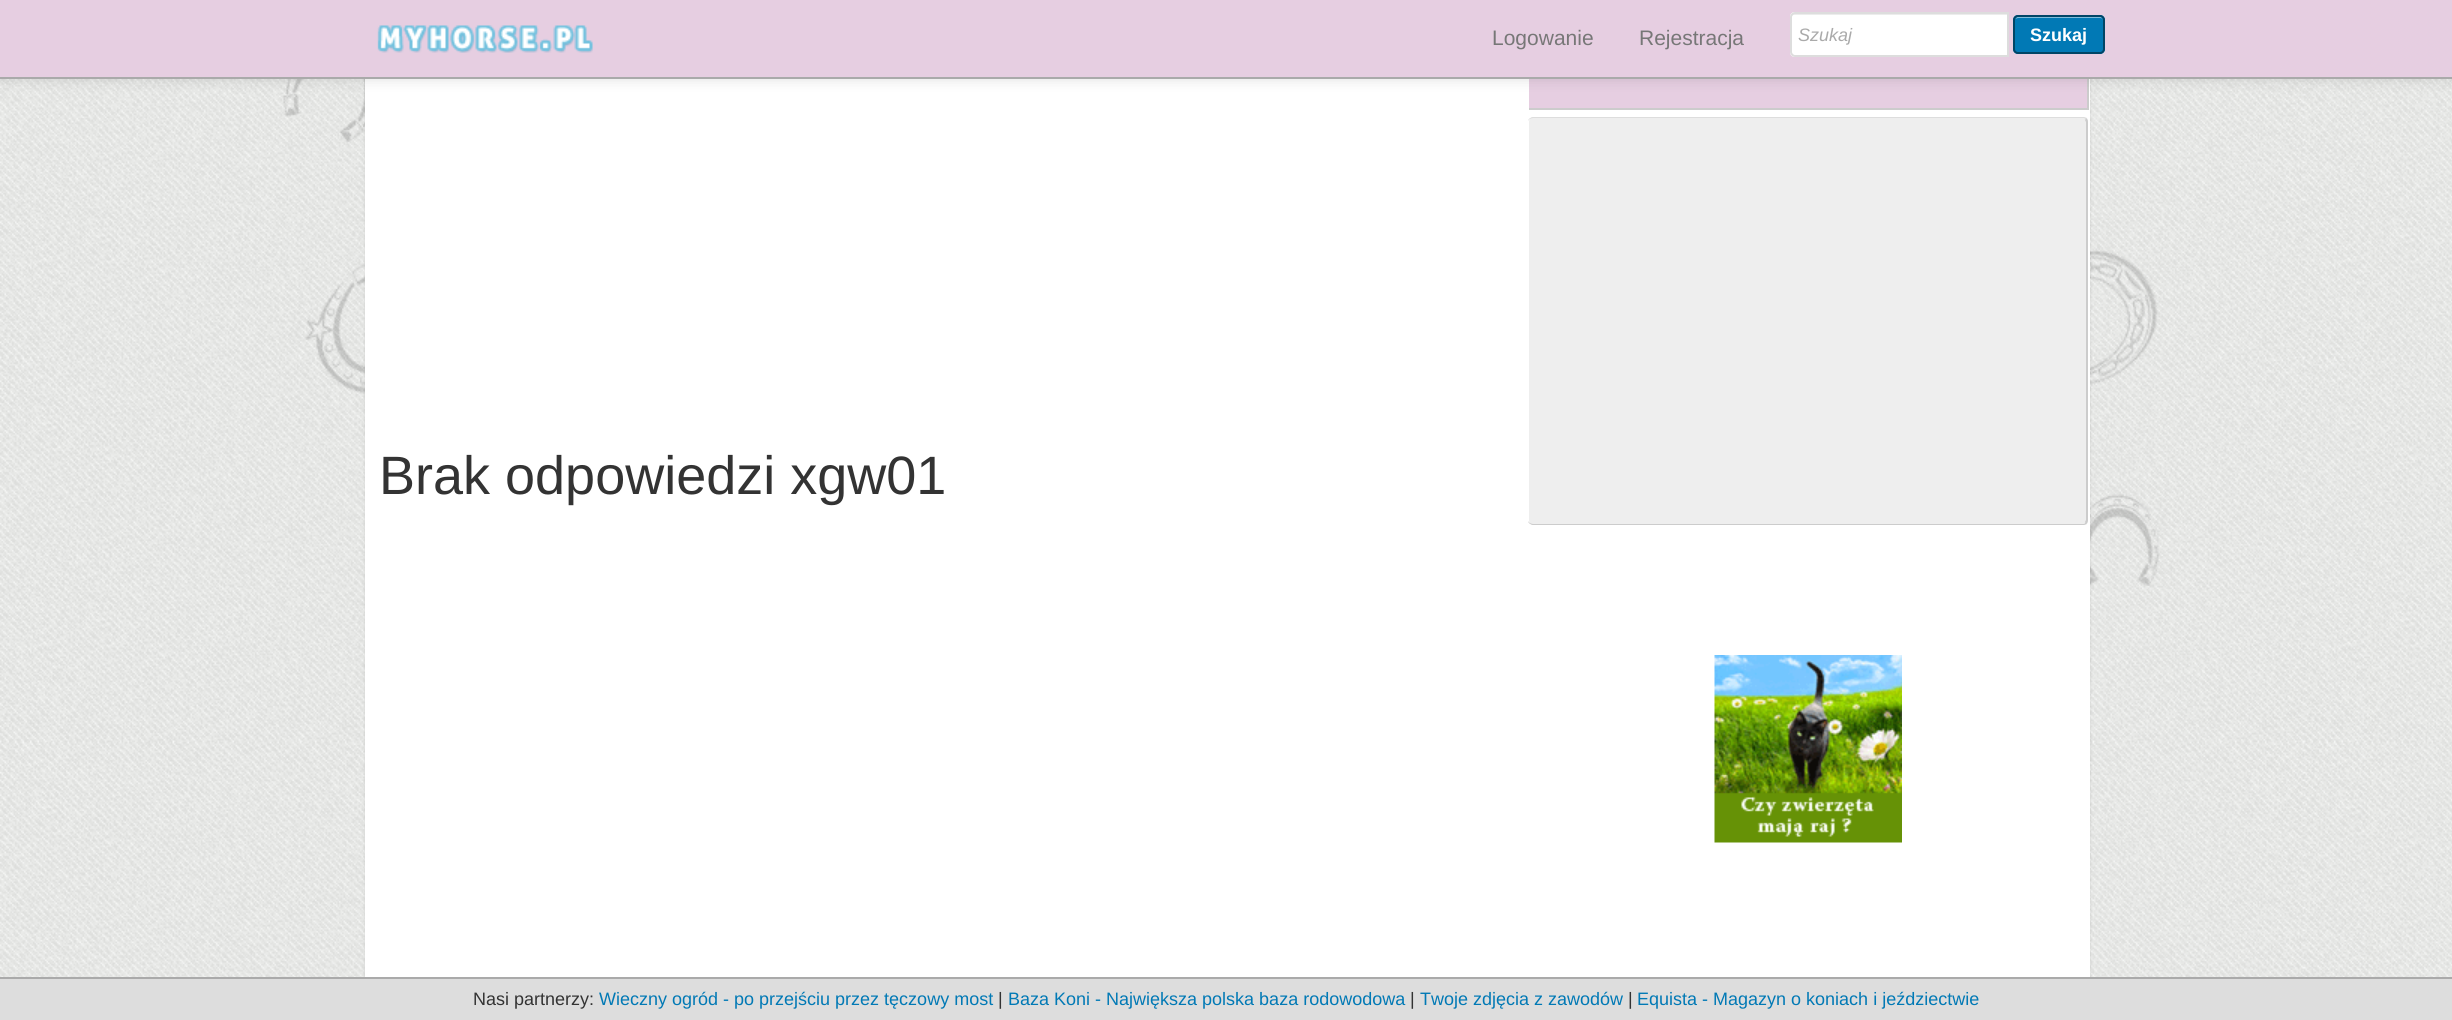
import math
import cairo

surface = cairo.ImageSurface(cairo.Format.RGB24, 2452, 1020)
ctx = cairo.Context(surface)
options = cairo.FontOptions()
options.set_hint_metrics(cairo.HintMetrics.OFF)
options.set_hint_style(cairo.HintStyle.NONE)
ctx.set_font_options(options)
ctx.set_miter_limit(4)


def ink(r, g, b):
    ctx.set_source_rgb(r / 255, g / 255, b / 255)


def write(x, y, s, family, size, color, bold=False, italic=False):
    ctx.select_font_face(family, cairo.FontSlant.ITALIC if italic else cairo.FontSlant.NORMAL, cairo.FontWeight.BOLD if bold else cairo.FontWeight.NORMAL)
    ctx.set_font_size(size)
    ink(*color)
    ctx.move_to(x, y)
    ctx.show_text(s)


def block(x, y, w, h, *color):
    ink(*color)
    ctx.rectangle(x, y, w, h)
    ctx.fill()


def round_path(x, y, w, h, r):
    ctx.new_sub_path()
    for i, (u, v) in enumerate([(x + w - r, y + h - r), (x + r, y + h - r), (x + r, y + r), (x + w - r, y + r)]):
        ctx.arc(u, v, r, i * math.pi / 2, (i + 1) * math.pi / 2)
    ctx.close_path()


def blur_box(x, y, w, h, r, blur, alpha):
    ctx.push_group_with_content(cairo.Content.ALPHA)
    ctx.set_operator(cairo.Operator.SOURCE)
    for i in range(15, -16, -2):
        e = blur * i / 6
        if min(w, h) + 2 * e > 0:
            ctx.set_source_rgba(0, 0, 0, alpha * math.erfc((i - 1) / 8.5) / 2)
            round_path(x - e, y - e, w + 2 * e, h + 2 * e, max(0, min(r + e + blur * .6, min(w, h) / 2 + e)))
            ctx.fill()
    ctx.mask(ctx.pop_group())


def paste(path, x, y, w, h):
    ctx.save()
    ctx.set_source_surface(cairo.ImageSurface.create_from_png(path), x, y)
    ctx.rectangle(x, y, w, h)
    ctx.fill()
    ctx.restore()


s1 = dict(family="Liberation Sans", size=21, color=(119, 119, 119))
s2 = dict(family="Liberation Sans", size=18, color=(170, 170, 170), italic=True)
s3 = dict(family="Liberation Sans", size=18, color=(255, 255, 255), bold=True)
s4 = dict(family="Liberation Sans", size=54, color=(51, 51, 51))
s5 = dict(family="Liberation Sans", size=18, color=(51, 51, 51))
s6 = dict(family="Liberation Sans", size=18, color=(1, 121, 181))

ink(255, 255, 255)
ctx.paint()
paste("pic1.png", 0, 79, 2452, 898)
paste("pic2.png", 283, 79, 1876, 507)
ink(0, 0, 0)
blur_box(365, -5, 1725, 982, 0, 1.5, 0.1)
block(365, 79, 1725, 898, 255, 255, 255)
block(1529, 79, 558, 29, 230, 206, 225)
block(2087, 79, 2, 31, 204, 204, 204)
ink(0, 0, 0)
blur_box(0, 0, 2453, 78, 0, 7.5, 0.15)
block(0, 0, 2452, 77, 230, 206, 225)
block(0, 77, 2452, 2, 170, 170, 170)
paste("pic3.png", 377, 25, 216, 28)
write(1492, 45, "Logowanie", **s1)
write(1639, 45, "Rejestracja", **s1)
ink(255, 255, 255)
ctx.new_path()
ctx.move_to(1795, 12)
ctx.line_to(2009, 12)
ctx.line_to(2009, 57)
ctx.line_to(1795, 57)
ctx.curve_to(1792, 57, 1790, 55, 1790, 52)
ctx.line_to(1790, 17)
ctx.curve_to(1790, 14, 1792, 12, 1795, 12)
ctx.close_path()
ctx.fill()
ink(236, 236, 236)
ctx.new_path()
ctx.move_to(1794, 15)
ctx.line_to(2007, 15)
ctx.line_to(2007, 14)
ctx.line_to(1794, 14)
ctx.curve_to(1792, 14, 1791, 15, 1791, 17)
ctx.line_to(1791, 18)
ctx.curve_to(1791, 16, 1792, 15, 1794, 15)
ctx.close_path()
ctx.fill()
ctx.new_path()
ctx.move_to(1795, 13)
ctx.line_to(2008, 13)
ctx.line_to(2008, 56)
ctx.line_to(1795, 56)
ctx.curve_to(1793, 56, 1791, 54, 1791, 52)
ctx.line_to(1791, 17)
ctx.curve_to(1791, 15, 1793, 13, 1795, 13)
ctx.close_path()
ink(221, 221, 221)
ctx.stroke()
write(1798, 41, "Szukaj", **s2)
ink(1, 121, 181)
round_path(2013, 15, 92, 39, 5)
ctx.fill()
ink(128, 188, 218)
ctx.new_path()
ctx.move_to(2018, 18)
ctx.line_to(2100, 18)
ctx.curve_to(2102, 18, 2103, 19, 2103, 21)
ctx.curve_to(2103, 13, 2090, 17, 2086, 17)
ctx.line_to(2017, 17)
ctx.line_to(2015, 19)
ctx.close_path()
ctx.fill()
round_path(2014, 16, 90, 37, 4)
ink(0, 69, 102)
ctx.stroke()
write(2030, 41, "Szukaj", **s3)
write(379, 494, "Brak odpowiedzi xgw01", **s4)
block(1529, 108, 559, 2, 204, 204, 204)
ink(238, 238, 238)
round_path(1529, 117, 559, 408, 5)
ctx.fill()
ink(221, 221, 221)
ctx.new_path()
ctx.move_to(1533, 117)
ctx.curve_to(1531, 117, 1528, 119, 1528, 121)
ctx.curve_to(1529, 119, 1532, 118, 1533, 118)
ctx.line_to(2084, 118)
ctx.curve_to(2085, 118, 2085, 119, 2085, 120)
ctx.line_to(2087, 118)
ctx.line_to(2084, 117)
ctx.close_path()
ctx.fill()
ink(204, 204, 204)
ctx.new_path()
ctx.move_to(2085, 522)
ctx.line_to(2086, 520)
ctx.line_to(2086, 122)
ctx.line_to(2085, 120)
ctx.line_to(2087, 118)
ctx.curve_to(2087, 119, 2088, 120, 2088, 122)
ctx.line_to(2088, 520)
ctx.curve_to(2088, 522, 2087, 523, 2087, 524)
ctx.close_path()
ctx.fill()
ctx.new_path()
ctx.move_to(1528, 521)
ctx.curve_to(1529, 523, 1532, 524, 1533, 524)
ctx.line_to(2084, 524)
ctx.curve_to(2085, 524, 2085, 523, 2085, 522)
ctx.line_to(2087, 524)
ctx.line_to(2084, 525)
ctx.line_to(1533, 525)
ctx.curve_to(1531, 525, 1528, 523, 1528, 521)
ctx.close_path()
ctx.fill()
paste("pic4.png", 1714, 655, 188, 188)
block(0, 979, 2452, 41, 221, 221, 221)
block(0, 977, 2452, 2, 170, 170, 170)
write(473, 1005, "Nasi partnerzy:", **s5)
write(599, 1005, "Wieczny ogród - po przejściu przez tęczowy most", **s6)
write(998, 1005, "|", **s5)
write(1008, 1005, "Baza Koni - Największa polska baza rodowodowa", **s6)
write(1410, 1005, "|", **s5)
write(1420, 1005, "Twoje zdjęcia z zawodów", **s6)
write(1628, 1005, "|", **s5)
write(1637, 1005, "Equista - Magazyn o koniach i jeździectwie", **s6)
surface.write_to_png("screenshot.png")
